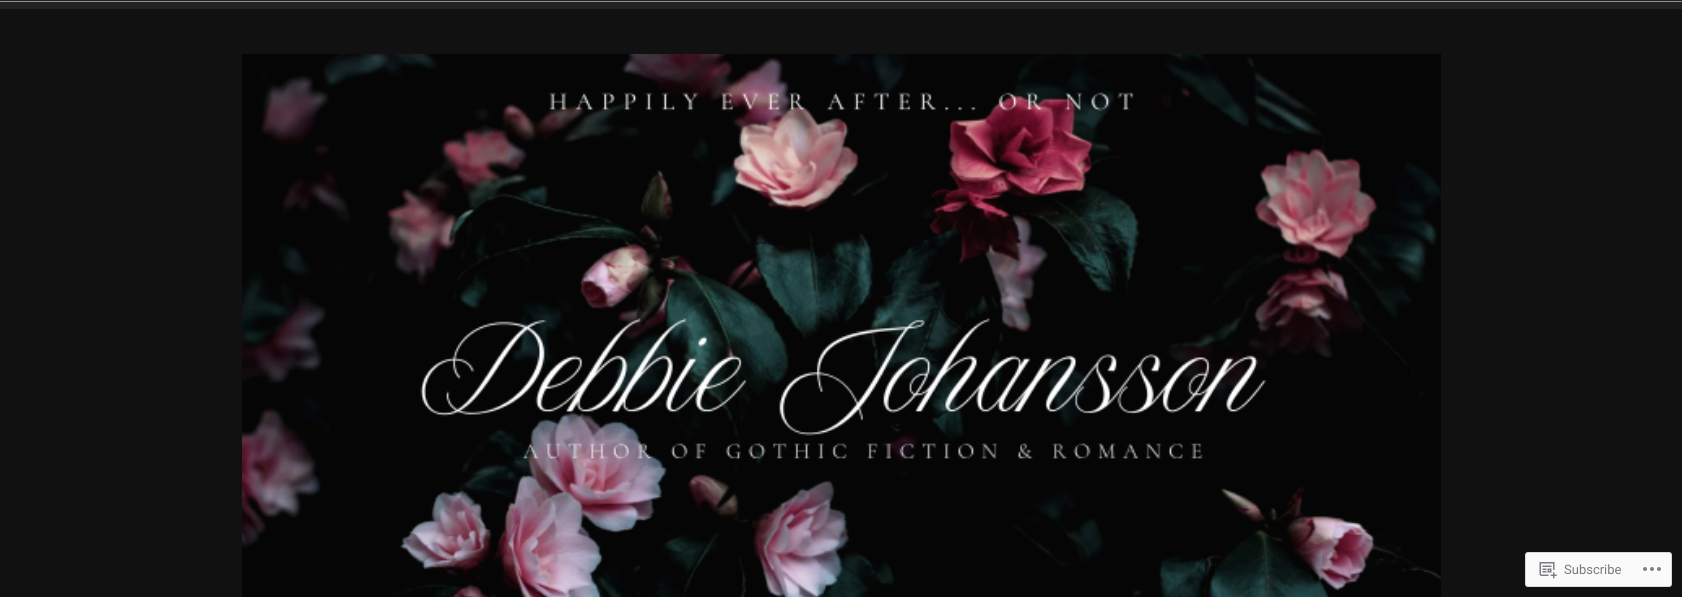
import math
import cairo

surface = cairo.ImageSurface(cairo.Format.RGB24, 1682, 597)
ctx = cairo.Context(surface)
options = cairo.FontOptions()
options.set_hint_metrics(cairo.HintMetrics.OFF)
options.set_hint_style(cairo.HintStyle.NONE)
ctx.set_font_options(options)
ctx.set_miter_limit(4)


def ink(r, g, b):
    ctx.set_source_rgb(r / 255, g / 255, b / 255)


def write(x, y, s, family, size, color, bold=False, italic=False):
    ctx.select_font_face(family, cairo.FontSlant.ITALIC if italic else cairo.FontSlant.NORMAL, cairo.FontWeight.BOLD if bold else cairo.FontWeight.NORMAL)
    ctx.set_font_size(size)
    ink(*color)
    ctx.move_to(x, y)
    ctx.show_text(s)


def block(x, y, w, h, *color):
    ink(*color)
    ctx.rectangle(x, y, w, h)
    ctx.fill()


def round_path(x, y, w, h, r):
    ctx.new_sub_path()
    for i, (u, v) in enumerate([(x + w - r, y + h - r), (x + r, y + h - r), (x + r, y + r), (x + w - r, y + r)]):
        ctx.arc(u, v, r, i * math.pi / 2, (i + 1) * math.pi / 2)
    ctx.close_path()


def paste(path, x, y, w, h):
    ctx.save()
    ctx.set_source_surface(cairo.ImageSurface.create_from_png(path), x, y)
    ctx.rectangle(x, y, w, h)
    ctx.fill()
    ctx.restore()


s1 = dict(family="Roboto", size=13, color=(118, 122, 128))

ink(17, 17, 17)
ctx.paint()
block(0, 0, 1682, 9, 34, 34, 34)
block(0, 1, 1682, 1, 145, 145, 145)
paste("pic1.png", 242, 54, 1199, 543)
ink(250, 250, 250)
round_path(1525.5, 552.5, 146, 34, 2.5)
ctx.fill_preserve()
ink(216, 216, 218)
ctx.set_line_width(1)
ctx.stroke()
paste("pic2.png", 1539, 562, 18, 17)
write(1564, 574, "Subscribe", **s1)
paste("pic3.png", 1643, 567, 18, 4)
surface.write_to_png("screenshot.png")
